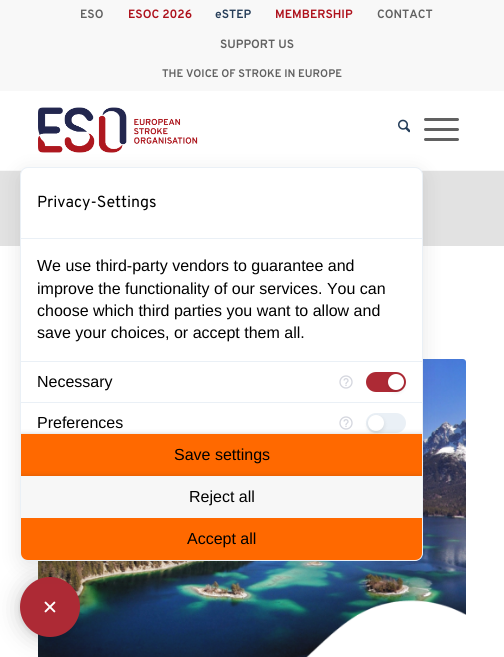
import math
import cairo

surface = cairo.ImageSurface(cairo.Format.RGB24, 504, 657)
ctx = cairo.Context(surface)
options = cairo.FontOptions()
options.set_hint_metrics(cairo.HintMetrics.OFF)
options.set_hint_style(cairo.HintStyle.NONE)
ctx.set_font_options(options)
ctx.set_miter_limit(4)


def ink(r, g, b):
    ctx.set_source_rgb(r / 255, g / 255, b / 255)


def write(x, y, s, family, size, color, bold=False, italic=False):
    ctx.select_font_face(family, cairo.FontSlant.ITALIC if italic else cairo.FontSlant.NORMAL, cairo.FontWeight.BOLD if bold else cairo.FontWeight.NORMAL)
    ctx.set_font_size(size)
    ink(*color)
    ctx.move_to(x, y)
    ctx.show_text(s)


def block(x, y, w, h, *color):
    ink(*color)
    ctx.rectangle(x, y, w, h)
    ctx.fill()


def round_path(x, y, w, h, r):
    ctx.new_sub_path()
    for i, (u, v) in enumerate([(x + w - r, y + h - r), (x + r, y + h - r), (x + r, y + r), (x + w - r, y + r)]):
        ctx.arc(u, v, r, i * math.pi / 2, (i + 1) * math.pi / 2)
    ctx.close_path()


def blur_box(x, y, w, h, r, blur, alpha):
    ctx.push_group_with_content(cairo.Content.ALPHA)
    ctx.set_operator(cairo.Operator.SOURCE)
    for i in range(15, -16, -2):
        e = blur * i / 6
        if min(w, h) + 2 * e > 0:
            ctx.set_source_rgba(0, 0, 0, alpha * math.erfc((i - 1) / 8.5) / 2)
            round_path(x - e, y - e, w + 2 * e, h + 2 * e, max(0, min(r + e + blur * .6, min(w, h) / 2 + e)))
            ctx.fill()
    ctx.mask(ctx.pop_group())


def paste(path, x, y, w, h):
    ctx.save()
    ctx.set_source_surface(cairo.ImageSurface.create_from_png(path), x, y)
    ctx.rectangle(x, y, w, h)
    ctx.fill()
    ctx.restore()


s1 = dict(family="Overpass", size=12, color=(97, 97, 97), bold=True)
s2 = dict(family="Overpass", size=12, color=(174, 17, 28), bold=True)
s3 = dict(family="Overpass", size=12, color=(39, 62, 89), bold=True)
s4 = dict(family="Overpass", size=11, color=(97, 97, 97), bold=True)
s5 = dict(family="Overpass", size=16, color=(0, 0, 0))
s6 = dict(family="Liberation Sans", size=16, color=(0, 0, 0))

ink(255, 255, 255)
ctx.paint()
block(0, 0, 504, 91, 248, 248, 248)
write(80, 18, "ESO", **s1)
write(128, 18, "ESOC 2026", **s2)
write(215, 18, "eSTEP", **s3)
write(275, 18, "MEMBERSHIP", **s2)
write(377, 18, "CONTACT", **s1)
write(220, 48, "SUPPORT US", **s1)
write(162, 77, "THE VOICE OF STROKE IN EUROPE", **s4)
block(0, 170, 504, 1, 248, 248, 248)
paste("pic1.png", 38, 107, 160, 46)
paste("pic2.png", 398, 119, 12, 14)
ink(97, 97, 97)
round_path(424, 128, 35, 3, 1.5)
ctx.fill()
round_path(424, 118, 35, 3, 1.5)
ctx.fill()
round_path(424, 138, 35, 3, 1.5)
ctx.fill()
block(0, 171, 504, 75, 226, 226, 226)
ink(217, 217, 217)
round_path(38, 359, 428, 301, 3)
ctx.fill()
paste("pic3.png", 38, 359, 428, 298)
ink(0, 0, 0)
blur_box(20, 579, 60, 60, 30, 12, 0.2)
blur_box(20, 578, 60, 60, 30, 3, 0.1)
ink(173, 42, 53)
ctx.arc(50, 607, 30, 0, 2 * math.pi)
ctx.fill()
ink(0, 0, 0)
blur_box(20, 172, 403, 394, 8, 10, 0.1)
ink(255, 255, 255)
round_path(20.5, 167.5, 402, 393, 7.5)
ctx.fill_preserve()
ink(234, 240, 246)
ctx.set_line_width(1)
ctx.stroke()
write(37, 207, "Privacy-Settings", **s5)
block(21, 238, 401, 1, 234, 240, 246)
write(37, 271, "We use third-party vendors to guarantee and", **s6)
write(37, 294, "improve the functionality of our services. You can", **s6)
write(37, 316, "choose which third parties you want to allow and", **s6)
write(37, 338, "save your choices, or accept them all.", **s6)
block(21, 361, 401, 1, 234, 240, 246)
write(37, 387, "Necessary", **s6)
paste("pic4.png", 339, 375, 14, 14)
ink(173, 42, 53)
round_path(366, 372, 40, 20, 10)
ctx.fill()
ink(0, 0, 0)
blur_box(388, 376, 16, 16, 8, 2, 0.1)
ink(255, 255, 255)
ctx.arc(396, 382, 8, 0, 2 * math.pi)
ctx.fill()
block(21, 402, 401, 1, 234, 240, 246)
write(37, 428, "Preferences", **s6)
paste("pic4.png", 339, 416, 14, 14)
ink(234, 240, 246)
round_path(366, 413, 40, 20, 10)
ctx.fill()
ink(0, 0, 0)
blur_box(368, 417, 16, 16, 8, 2, 0.1)
ink(255, 255, 255)
ctx.arc(376, 423, 8, 0, 2 * math.pi)
ctx.fill()
ctx.save()
round_path(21, 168, 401, 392, 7)
ctx.clip()
ink(32, 33, 36)
blur_box(21, 435, 401, 42, 0, 3, 0.28)
ctx.restore()
block(21, 434, 401, 42, 255, 105, 0)
write(174, 460, "Save settings", **s6)
ctx.save()
round_path(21, 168, 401, 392, 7)
ctx.clip()
ink(32, 33, 36)
blur_box(21, 477, 401, 42, 0, 3, 0.28)
ctx.restore()
block(21, 476, 401, 42, 247, 247, 247)
write(189, 502, "Reject all", **s6)
ink(255, 105, 0)
ctx.new_path()
ctx.move_to(21, 518)
ctx.line_to(422, 518)
ctx.line_to(422, 553)
ctx.curve_to(422, 557, 419, 560, 415, 560)
ctx.line_to(28, 560)
ctx.curve_to(24, 560, 21, 557, 21, 553)
ctx.close_path()
ctx.fill()
write(187, 544, "Accept all", **s6)
paste("pic5.png", 44, 601, 12, 12)
surface.write_to_png("screenshot.png")
